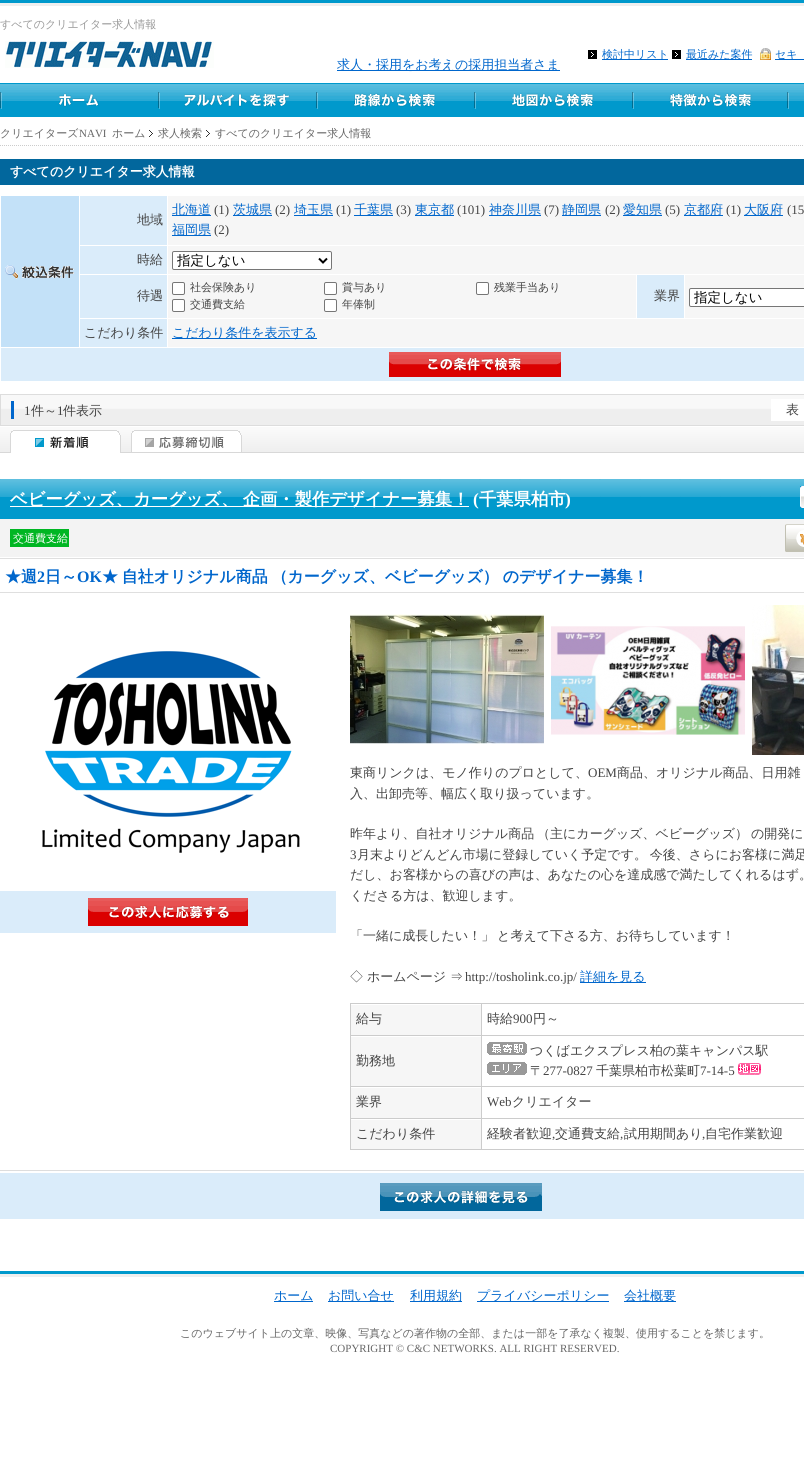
import math
import cairo

surface = cairo.ImageSurface(cairo.Format.RGB24, 804, 1473)
ctx = cairo.Context(surface)
options = cairo.FontOptions()
options.set_hint_metrics(cairo.HintMetrics.OFF)
options.set_hint_style(cairo.HintStyle.NONE)
ctx.set_font_options(options)
ctx.set_miter_limit(4)


def ink(r, g, b):
    ctx.set_source_rgb(r / 255, g / 255, b / 255)


def write(x, y, s, family, size, color, bold=False, italic=False):
    ctx.select_font_face(family, cairo.FontSlant.ITALIC if italic else cairo.FontSlant.NORMAL, cairo.FontWeight.BOLD if bold else cairo.FontWeight.NORMAL)
    ctx.set_font_size(size)
    ink(*color)
    ctx.move_to(x, y)
    ctx.show_text(s)


def write_spaced(x, y, s, letter, word):
    ctx.move_to(x, y)
    for ch in s:
        ctx.show_text(ch)
        ctx.rel_move_to(letter + word * (ch == ' '), 0)


def block(x, y, w, h, *color):
    ink(*color)
    ctx.rectangle(x, y, w, h)
    ctx.fill()


def round_path(x, y, w, h, r):
    ctx.new_sub_path()
    for i, (u, v) in enumerate([(x + w - r, y + h - r), (x + r, y + h - r), (x + r, y + r), (x + w - r, y + r)]):
        ctx.arc(u, v, r, i * math.pi / 2, (i + 1) * math.pi / 2)
    ctx.close_path()


def paste(path, x, y, w, h):
    ctx.save()
    ctx.set_source_surface(cairo.ImageSurface.create_from_png(path), x, y)
    ctx.rectangle(x, y, w, h)
    ctx.fill()
    ctx.restore()


s1 = dict(family="WenQuanYi Zen Hei Medium", size=11, color=(153, 153, 153))
s2 = dict(family="WenQuanYi Zen Hei Medium", size=11, color=(0, 102, 204))
s3 = dict(family="WenQuanYi Zen Hei Medium", size=13, color=(0, 102, 204))
s4 = dict(family="WenQuanYi Zen Hei Medium", size=11, color=(102, 102, 102))
s5 = dict(family="Liberation Serif", size=11, color=(102, 102, 102))
s6 = dict(family="WenQuanYi Zen Hei", size=13, color=(255, 255, 255), bold=True)
s7 = dict(family="WenQuanYi Zen Hei Medium", size=13, color=(68, 68, 68))
s8 = dict(family="Liberation Serif", size=13, color=(68, 68, 68))
s9 = dict(family="WenQuanYi Zen Hei Medium", size=13.5, color=(0, 0, 0))
s10 = dict(family="WenQuanYi Zen Hei Medium", size=11, color=(68, 68, 68))
s11 = dict(family="Liberation Serif", size=17.3, color=(255, 255, 255), bold=True)
s12 = dict(family="WenQuanYi Zen Hei", size=17.3, color=(255, 255, 255), bold=True)
s13 = dict(family="WenQuanYi Zen Hei Medium", size=11, color=(255, 255, 255))
s14 = dict(family="WenQuanYi Zen Hei", size=16, color=(0, 102, 204), bold=True)
s15 = dict(family="Liberation Serif", size=16, color=(0, 102, 204), bold=True)

ink(255, 255, 255)
ctx.paint()
paste("pic1.png", 0, 0, 804, 83)
write(0, 28, "すべてのクリエイター求人情報", **s1)
paste("pic2.png", 5, 41, 209, 27)
paste("pic3.png", 588, 50, 9, 9)
block(602, 59, 66, 1, 0, 102, 204)
write(602, 58, "検討中リスト", **s2)
paste("pic3.png", 672, 50, 9, 9)
block(686, 59, 66, 1, 0, 102, 204)
write(686, 58, "最近みた案件", **s2)
paste("pic4.png", 760, 48, 11, 12)
block(775, 59, 29, 1, 0, 102, 204)
write(775, 58, "セキ", **s2)
block(337, 70, 223, 1, 0, 102, 204)
write(337, 69, "求人・採用をお考えの採用担当者さま", **s3)
paste("pic5.png", 0, 83, 158, 34)
paste("pic6.png", 158, 83, 158, 34)
paste("pic7.png", 316, 83, 158, 34)
paste("pic8.png", 474, 83, 158, 34)
paste("pic9.png", 632, 83, 158, 34)
paste("pic10.png", 790, 83, 14, 34)
paste("pic11.png", 0, 145, 803, 1)
write(0, 137, "クリエイターズ", **s4)
write(79, 137, "NAVI", **s5)
write(112, 137, "ホーム", **s4)
paste("pic12.png", 149, 130, 4, 7)
write(158, 137, "求人検索", **s4)
paste("pic12.png", 206, 130, 4, 7)
write(215, 137, "すべてのクリエイター求人情報", **s4)
block(0, 159, 804, 26, 2, 103, 157)
write(10, 176, "すべてのクリエイター求人情報", **s6)
block(1, 196, 78, 151, 195, 225, 248)
paste("pic13.png", 5, 265, 69, 14)
block(80, 196, 87, 49, 218, 236, 250)
write(137, 224, "地域", **s7)
block(168, 196, 636, 49, 246, 246, 246)
block(172, 215, 39, 1, 0, 102, 204)
write(172, 214, "北海道", **s3)
write(214, 214, "(1)", **s8)
block(233, 215, 39, 1, 0, 102, 204)
write(233, 214, "茨城県", **s3)
write(275, 214, "(2)", **s8)
block(294, 215, 39, 1, 0, 102, 204)
write(294, 214, "埼玉県", **s3)
write(336, 214, "(1)", **s8)
block(354, 215, 39, 1, 0, 102, 204)
write(354, 214, "千葉県", **s3)
write(396, 214, "(3)", **s8)
block(415, 215, 39, 1, 0, 102, 204)
write(415, 214, "東京都", **s3)
write(457, 214, "(101)", **s8)
block(489, 215, 52, 1, 0, 102, 204)
write(489, 214, "神奈川県", **s3)
write(544, 214, "(7)", **s8)
block(562, 215, 39, 1, 0, 102, 204)
write(562, 214, "静岡県", **s3)
write(605, 214, "(2)", **s8)
block(623, 215, 39, 1, 0, 102, 204)
write(623, 214, "愛知県", **s3)
write(665, 214, "(5)", **s8)
block(684, 215, 39, 1, 0, 102, 204)
write(684, 214, "京都府", **s3)
write(726, 214, "(1)", **s8)
block(744, 215, 39, 1, 0, 102, 204)
write(744, 214, "大阪府", **s3)
write(787, 214, "(15", **s8)
block(172, 235, 39, 1, 0, 102, 204)
write(172, 234, "福岡県", **s3)
write(214, 234, "(2)", **s8)
block(80, 246, 87, 28, 218, 236, 250)
write(137, 264, "時給", **s7)
block(168, 246, 636, 28, 246, 246, 246)
ink(255, 255, 255)
round_path(172.5, 251.5, 159, 18, 1.5)
ctx.fill_preserve()
ink(118, 118, 118)
ctx.set_line_width(1)
ctx.stroke()
ctx.new_path()
ctx.move_to(319, 258.5)
ctx.line_to(323, 262.5)
ctx.line_to(327, 258.5)
ink(0, 0, 0)
ctx.set_line_width(2)
ctx.stroke()
write(177, 265, "指定しない", **s9)
block(80, 275, 87, 43, 218, 236, 250)
write(137, 300, "待遇", **s7)
block(168, 275, 468, 43, 246, 246, 246)
ink(255, 255, 255)
round_path(172.5, 282.5, 12, 12, 1.5)
ctx.fill_preserve()
ink(118, 118, 118)
ctx.set_line_width(1)
ctx.stroke()
write(190, 291, "社会保険あり", **s10)
ink(255, 255, 255)
round_path(324.5, 282.5, 12, 12, 1.5)
ctx.fill_preserve()
ink(118, 118, 118)
ctx.stroke()
write(342, 291, "賞与あり", **s10)
ink(255, 255, 255)
round_path(476.5, 282.5, 12, 12, 1.5)
ctx.fill_preserve()
ink(118, 118, 118)
ctx.stroke()
write(494, 291, "残業手当あり", **s10)
ink(255, 255, 255)
round_path(172.5, 299.5, 12, 12, 1.5)
ctx.fill_preserve()
ink(118, 118, 118)
ctx.stroke()
write(190, 308, "交通費支給", **s10)
ink(255, 255, 255)
round_path(324.5, 299.5, 12, 12, 1.5)
ctx.fill_preserve()
ink(118, 118, 118)
ctx.stroke()
write(342, 308, "年俸制", **s10)
block(637, 275, 47, 43, 218, 236, 250)
write(654, 300, "業界", **s7)
block(685, 275, 119, 43, 246, 246, 246)
ink(255, 255, 255)
round_path(689.5, 288.5, 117, 18, 1.5)
ctx.fill_preserve()
ink(118, 118, 118)
ctx.stroke()
write(694, 302, "指定しない", **s9)
block(80, 319, 87, 28, 218, 236, 250)
write(84, 337, "こだわり条件", **s7)
block(168, 319, 636, 28, 246, 246, 246)
block(172, 338, 145, 1, 0, 102, 204)
write(172, 337, "こだわり条件を表示する", **s3)
block(1, 348, 803, 33, 218, 236, 250)
paste("pic14.png", 389, 352, 172, 25)
paste("pic15.png", 1, 395, 803, 30)
ctx.rectangle(0.5, 394.5, 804, 31)
ink(221, 221, 221)
ctx.stroke()
block(11, 401, 3, 18, 0, 102, 204)
write(24, 415, "1", **s8)
write(31, 415, "件～", **s7)
write(57, 415, "1", **s8)
write(63, 415, "件表示", **s7)
block(771, 399, 33, 22, 255, 255, 255)
write(786, 414, "表", **s7)
paste("pic16.png", 0, 427, 804, 26)
paste("pic17.png", 10, 430, 111, 23)
paste("pic18.png", 131, 430, 111, 23)
block(0, 497, 804, 22, 0, 153, 204)
paste("pic19.png", 0, 479, 804, 18)
block(10, 506, 459, 1, 255, 255, 255)
ctx.select_font_face("WenQuanYi Zen Hei", cairo.FontSlant.NORMAL, cairo.FontWeight.BOLD)
ctx.set_font_size(17.3)
write_spaced(10, 505, "ベビーグッズ、カーグッズ、 企画・製作デザイナー募集！", 0, -1)
write(473, 505, "(", **s11)
write(479, 505, "千葉県柏市", **s12)
write(565, 505, ")", **s11)
paste("pic20.png", 800, 486, 4, 22)
block(0, 519, 804, 38, 243, 243, 243)
paste("pic21.png", 0, 557, 804, 2)
block(10, 529, 59, 18, 0, 182, 35)
write(13, 542, "交通費支給", **s13)
paste("pic22.png", 785, 524, 19, 28)
block(0, 592, 804, 1, 223, 223, 223)
write(5, 582, "★週", **s14)
write(37, 582, "2", **s15)
write(45, 582, "日～", **s14)
write(77, 582, "OK", **s15)
ctx.select_font_face("WenQuanYi Zen Hei", cairo.FontSlant.NORMAL, cairo.FontWeight.BOLD)
write_spaced(102, 582, "★ 自社オリジナル商品 （カーグッズ、ベビーグッズ） のデザイナー募集！", 0, -1)
block(0, 1170, 804, 1, 221, 221, 221)
paste("pic23.png", 42, 651, 258, 202)
block(0, 891, 336, 42, 218, 236, 250)
paste("pic24.png", 88, 898, 160, 28)
paste("pic25.png", 350, 614, 194, 130)
paste("pic26.png", 551, 626, 194, 109)
paste("pic27.png", 752, 605, 52, 150)
write(350, 777, "東商リンクは、モノ作りのプロとして、", **s7)
write(588, 777, "OEM", **s8)
write(617, 777, "商品、オリジナル商品、日用雑", **s7)
write(350, 798, "入、出卸売等、幅広く取り扱っています。", **s7)
write_spaced(350, 838, "昨年より、自社オリジナル商品 （主にカーグッズ、ベビーグッズ） の開発に", 0, -1)
write(350, 859, "3", **s8)
ctx.select_font_face("WenQuanYi Zen Hei Medium")
write_spaced(357, 859, "月末よりどんどん市場に登録していく予定です。 今後、さらにお客様に満足", 0, -1)
write_spaced(350, 879, "だし、お客様からの喜びの声は、あなたの心を達成感で満たしてくれるはず。", 0, -1)
write(350, 900, "くださる方は、歓迎します。", **s7)
write_spaced(350, 940, "「一緒に成長したい！」 と考えて下さる方、お待ちしています！", 0, -1)
write(350, 981, "◇ ホームページ ⇒", **s7)
write(465, 981, "http://tosholink.co.jp/", **s8)
block(580, 982, 66, 1, 0, 102, 204)
write(580, 981, "詳細を見る", **s3)
block(350, 1003, 454, 1, 204, 204, 204)
block(350, 1003, 1, 147, 204, 204, 204)
block(351, 1005, 130, 30, 246, 246, 246)
write(356, 1023, "給与", **s7)
block(481, 1035, 323, 1, 204, 204, 204)
block(481, 1086, 323, 1, 204, 204, 204)
block(481, 1118, 323, 1, 204, 204, 204)
block(481, 1149, 323, 1, 204, 204, 204)
block(481, 1118, 1, 32, 204, 204, 204)
block(350, 1118, 132, 1, 204, 204, 204)
block(481, 1086, 1, 33, 204, 204, 204)
block(350, 1086, 132, 1, 204, 204, 204)
block(481, 1035, 1, 52, 204, 204, 204)
block(350, 1035, 132, 1, 204, 204, 204)
block(481, 1003, 1, 33, 204, 204, 204)
write(487, 1023, "時給", **s7)
write(513, 1023, "900", **s8)
write(533, 1023, "円～", **s7)
block(351, 1037, 130, 49, 246, 246, 246)
write(356, 1065, "勤務地", **s7)
paste("pic28.png", 487, 1042, 40, 13)
write(530, 1055, "つくばエクスプレス柏の葉キャンパス駅", **s7)
paste("pic29.png", 487, 1062, 40, 13)
write(530, 1075, "〒", **s7)
write(543, 1075, "277-0827", **s8)
write(596, 1075, "千葉県柏市松葉町", **s7)
write(700, 1075, "7-14-5", **s8)
paste("pic30.png", 738, 1063, 23, 12)
block(351, 1088, 130, 30, 246, 246, 246)
write(356, 1106, "業界", **s7)
write(487, 1106, "Web", **s8)
write(512, 1106, "クリエイター", **s7)
block(351, 1120, 130, 29, 246, 246, 246)
block(350, 1149, 132, 1, 204, 204, 204)
write(356, 1138, "こだわり条件", **s7)
write(487, 1138, "経験者歓迎", **s7)
write(552, 1138, ",", **s8)
write(555, 1138, "交通費支給", **s7)
write(620, 1138, ",", **s8)
write(624, 1138, "試用期間あり", **s7)
write(702, 1138, ",", **s8)
write(705, 1138, "自宅作業歓迎", **s7)
block(0, 1173, 804, 46, 218, 236, 250)
paste("pic31.png", 380, 1183, 162, 28)
paste("pic32.png", 0, 1271, 804, 6)
block(274, 1301, 39, 1, 0, 102, 204)
write(274, 1300, "ホーム", **s3)
block(328, 1301, 66, 1, 0, 102, 204)
write(328, 1300, "お問い合せ", **s3)
block(410, 1301, 52, 1, 0, 102, 204)
write(410, 1300, "利用規約", **s3)
block(477, 1301, 132, 1, 0, 102, 204)
write(477, 1300, "プライバシーポリシー", **s3)
block(624, 1301, 52, 1, 0, 102, 204)
write(624, 1300, "会社概要", **s3)
write(180, 1337, "このウェブサイト上の文章、映像、写真などの著作物の全部、または一部を了承なく複製、使用することを禁じます。", **s4)
write(330, 1352, "COPYRIGHT © C&C NETWORKS. ALL RIGHT RESERVED.", **s5)
surface.write_to_png("screenshot.png")
